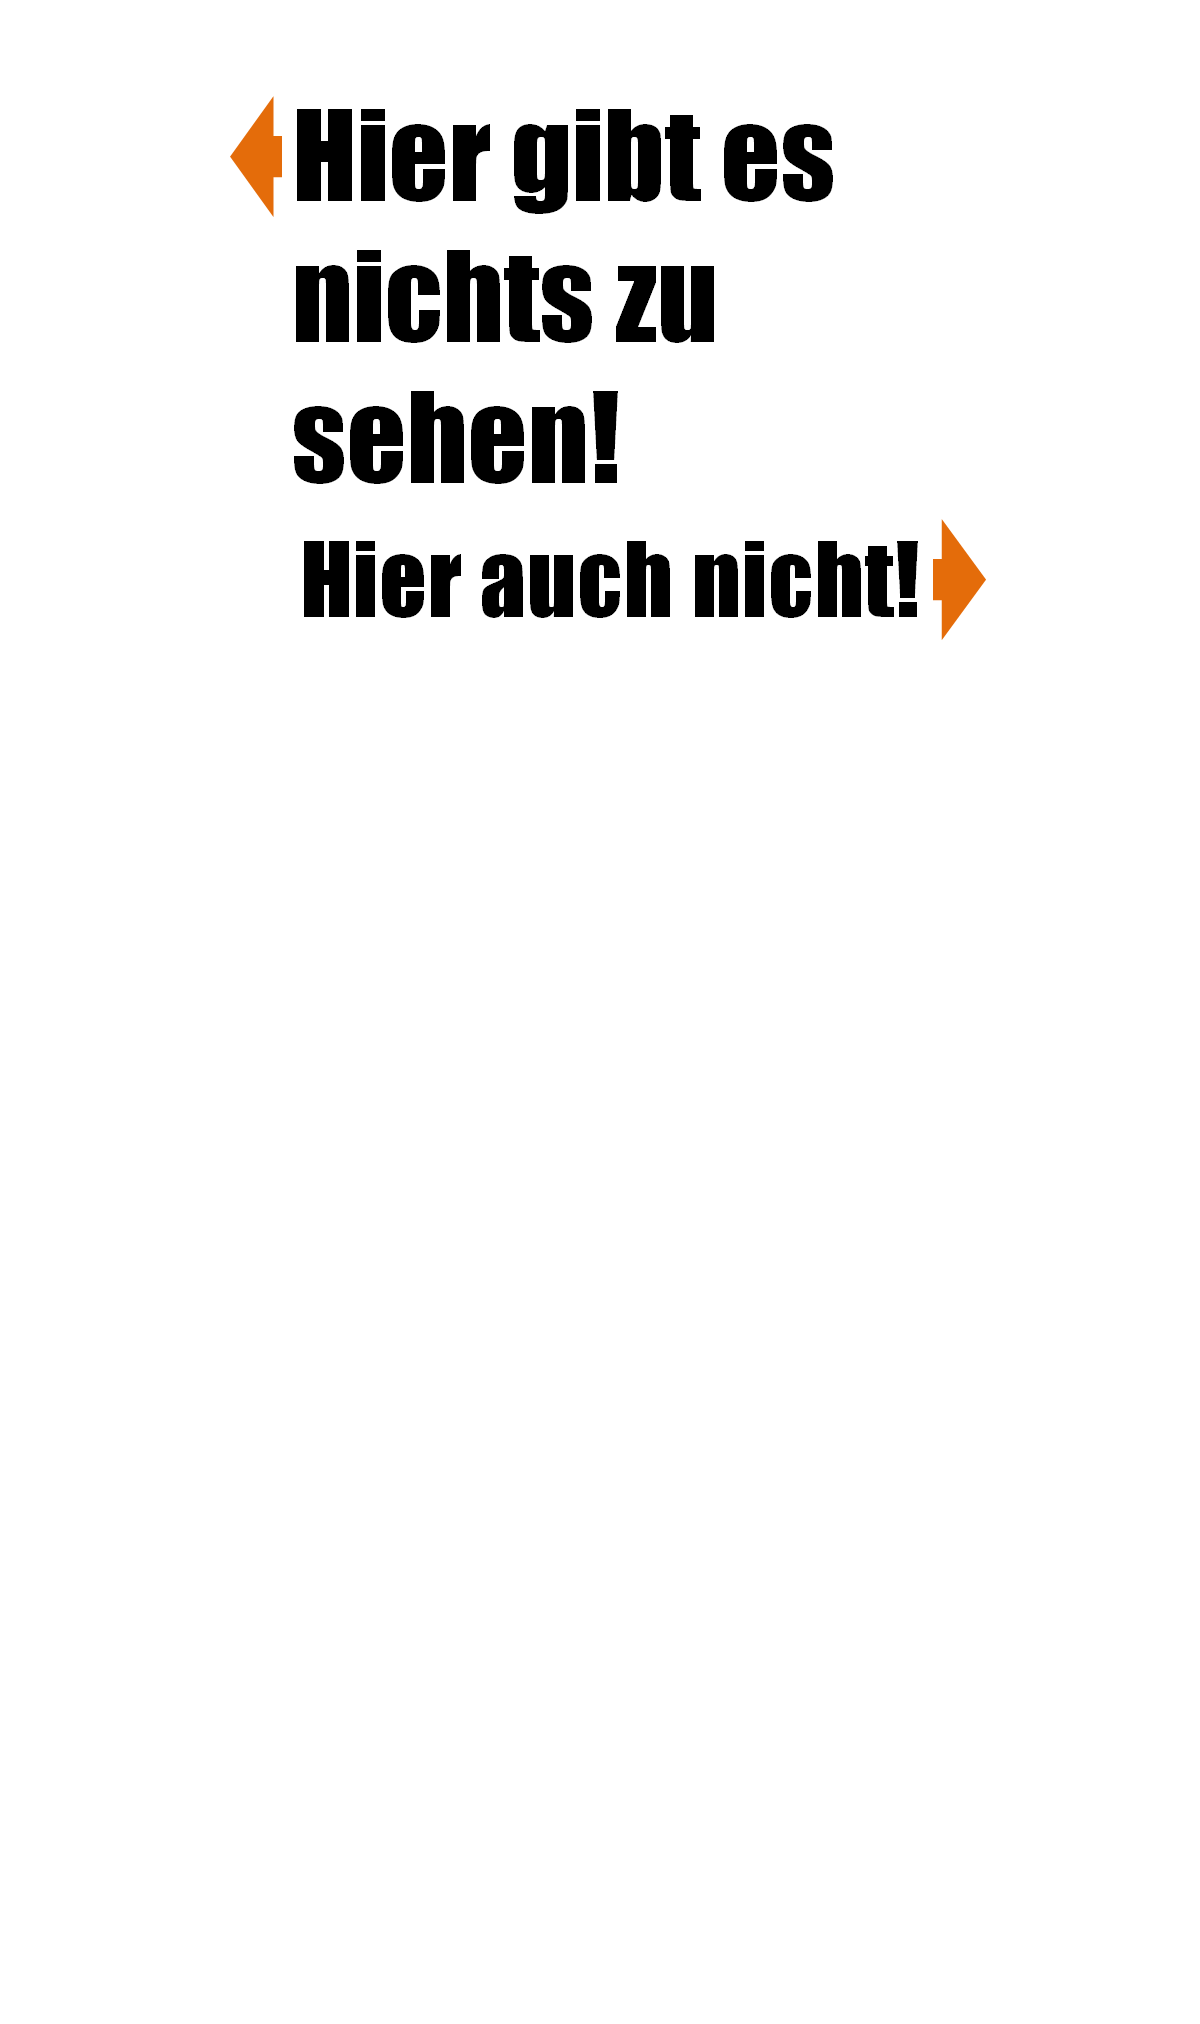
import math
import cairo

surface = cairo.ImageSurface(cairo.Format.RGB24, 1200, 2024)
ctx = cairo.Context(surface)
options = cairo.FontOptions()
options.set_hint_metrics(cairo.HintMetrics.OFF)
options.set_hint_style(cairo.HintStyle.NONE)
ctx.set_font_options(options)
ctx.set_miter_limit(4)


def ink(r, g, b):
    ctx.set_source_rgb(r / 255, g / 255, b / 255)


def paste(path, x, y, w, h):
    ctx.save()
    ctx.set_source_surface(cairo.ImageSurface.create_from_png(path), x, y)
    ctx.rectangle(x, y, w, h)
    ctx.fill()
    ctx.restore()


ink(255, 255, 255)
ctx.paint()
paste("pic1.png", 230, 96, 756, 544)
surface.write_to_png("screenshot.png")
